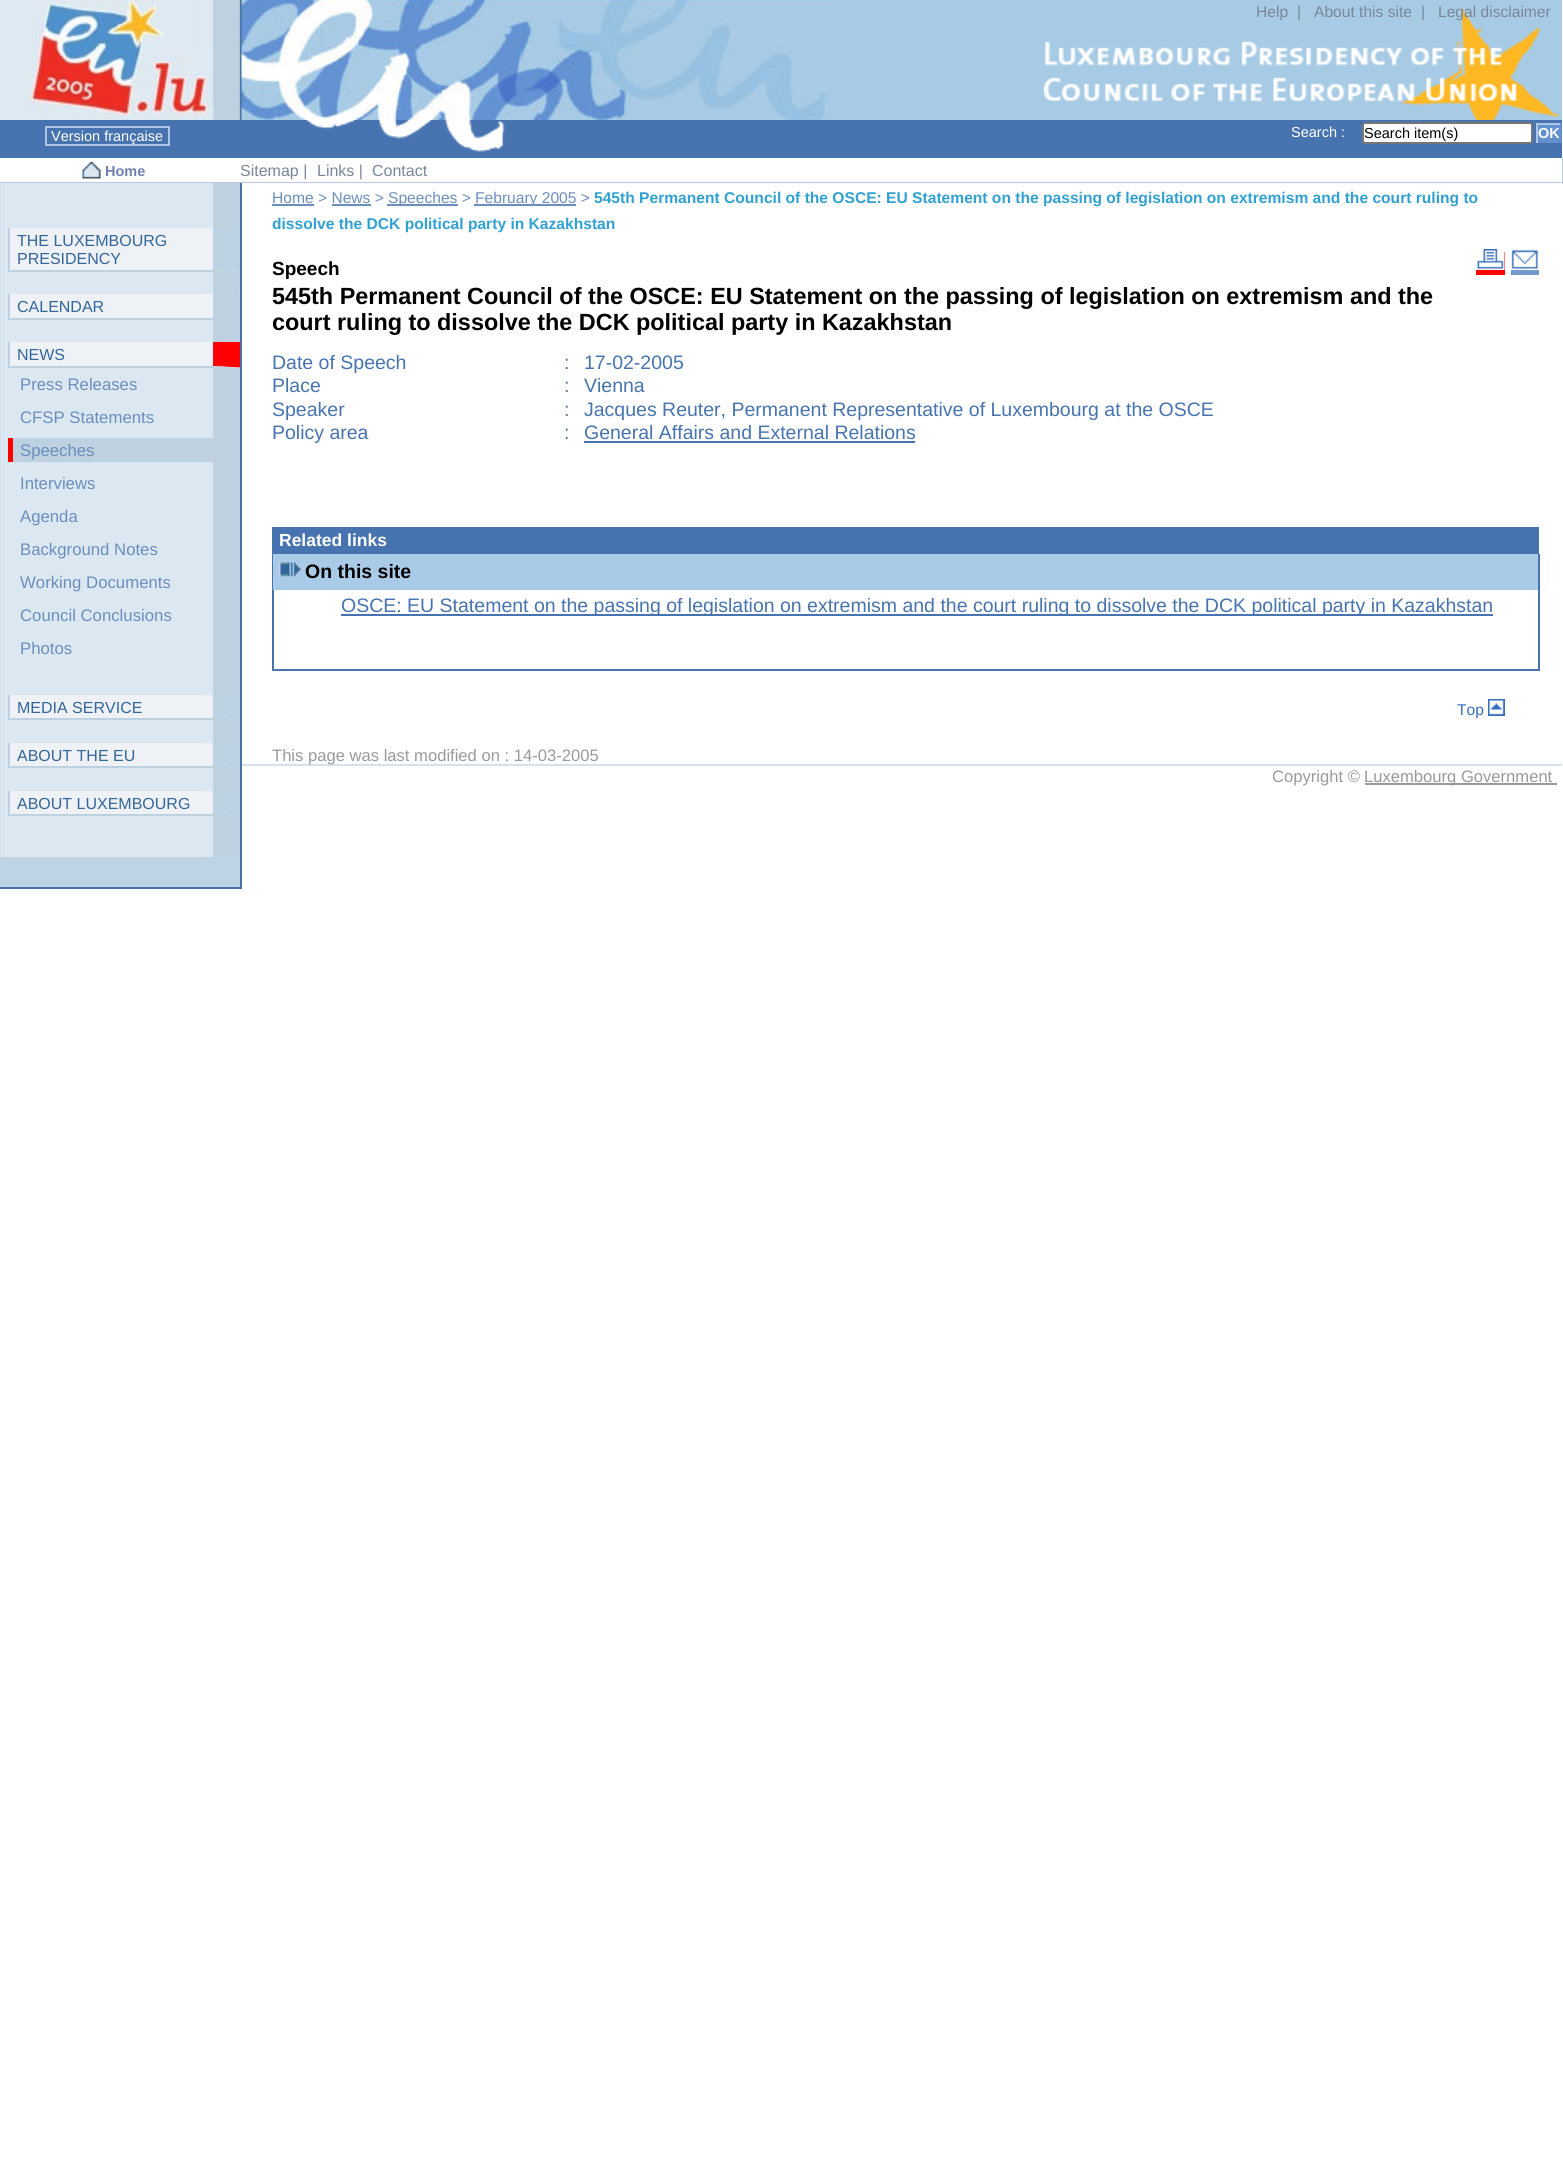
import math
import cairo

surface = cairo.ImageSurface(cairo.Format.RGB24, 1563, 2175)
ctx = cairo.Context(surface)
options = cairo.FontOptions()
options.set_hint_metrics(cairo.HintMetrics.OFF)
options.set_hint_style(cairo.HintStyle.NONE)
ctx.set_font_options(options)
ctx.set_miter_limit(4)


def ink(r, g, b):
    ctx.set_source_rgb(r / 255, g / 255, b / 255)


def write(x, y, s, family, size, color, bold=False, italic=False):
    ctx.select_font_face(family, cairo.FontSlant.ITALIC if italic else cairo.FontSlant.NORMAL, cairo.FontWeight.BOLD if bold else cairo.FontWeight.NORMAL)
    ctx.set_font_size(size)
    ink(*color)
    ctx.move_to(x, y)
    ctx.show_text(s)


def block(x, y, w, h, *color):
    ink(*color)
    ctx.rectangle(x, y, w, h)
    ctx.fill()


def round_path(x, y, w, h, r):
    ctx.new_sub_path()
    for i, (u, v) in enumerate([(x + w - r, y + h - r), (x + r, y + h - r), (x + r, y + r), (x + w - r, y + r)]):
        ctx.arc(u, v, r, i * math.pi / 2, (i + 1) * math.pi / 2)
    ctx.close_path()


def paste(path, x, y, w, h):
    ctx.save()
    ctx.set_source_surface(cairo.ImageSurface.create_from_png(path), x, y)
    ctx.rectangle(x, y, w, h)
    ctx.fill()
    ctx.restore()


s1 = dict(family="Liberation Sans", size=15.6, color=(120, 135, 154))
s2 = dict(family="Liberation Sans", size=14.5, color=(255, 255, 255))
s3 = dict(family="Liberation Sans", size=14.5, color=(0, 0, 0))
s4 = dict(family="Liberation Sans", size=14.5, color=(255, 255, 255), bold=True)
s5 = dict(family="Liberation Sans", size=14.5, color=(110, 130, 176), bold=True)
s6 = dict(family="Liberation Sans", size=16, color=(120, 135, 154))
s7 = dict(family="Liberation Sans", size=16, color=(51, 102, 153))
s8 = dict(family="Liberation Sans", size=16.75, color=(108, 142, 189))
s9 = dict(family="Liberation Sans", size=15.6, color=(108, 142, 189))
s10 = dict(family="Liberation Sans", size=15.6, color=(49, 161, 211), bold=True)
s11 = dict(family="Liberation Sans", size=19, color=(0, 0, 0), bold=True)
s12 = dict(family="Liberation Sans", size=23.4, color=(0, 0, 0), bold=True)
s13 = dict(family="Liberation Sans", size=19.5, color=(71, 116, 176))
s14 = dict(family="Liberation Sans", size=17.5, color=(255, 255, 255), bold=True)
s15 = dict(family="Liberation Sans", size=19.5, color=(0, 0, 0), bold=True)
s16 = dict(family="Liberation Sans", size=15.6, color=(55, 111, 187))
s17 = dict(family="Liberation Sans", size=16.6, color=(153, 153, 153))

ink(255, 255, 255)
ctx.paint()
block(828, 0, 734, 120, 168, 203, 229)
paste("pic1.png", 216, 0, 612, 120)
paste("pic2.png", 0, 0, 216, 120)
paste("pic3.png", 1043, 7, 516, 113)
write(1256, 17, "Help", **s1)
write(1297, 17, "|", **s1)
write(1314, 17, "About this site", **s1)
write(1421, 17, "|", **s1)
write(1438, 17, "Legal disclaimer", **s1)
block(0, 120, 1562, 38, 71, 116, 176)
paste("pic4.png", 306, 120, 199, 32)
ctx.rectangle(46, 127, 123, 18)
ink(174, 199, 232)
ctx.stroke()
write(51, 141, "Version française", **s2)
write(1291, 137, "Search :", **s2)
round_path(1363, 123, 169, 20, 2)
ctx.fill_preserve()
ink(118, 118, 118)
ctx.stroke()
write(1364, 138, "Search item(s)", **s3)
block(1538, 125, 22, 18, 97, 144, 205)
block(1536, 123, 26, 2, 171, 199, 236)
block(1560, 123, 2, 20, 97, 144, 205)
block(1536, 123, 2, 20, 171, 199, 236)
write(1538, 138, "OK", **s4)
block(1562, 158, 1, 25, 183, 200, 224)
block(0, 182, 1563, 2, 183, 200, 224)
paste("pic5.png", 82, 162, 19, 17)
write(105, 176, "Home", **s5)
write(240, 176, "Sitemap |", **s6)
write(317, 176, "Links |", **s6)
write(372, 176, "Contact", **s6)
block(242, 183, 1320, 1, 255, 255, 255)
paste("pic6.png", 0, 183, 240, 674)
block(240, 764, 1322, 2, 214, 225, 239)
block(240, 183, 2, 705, 74, 114, 166)
block(0, 887, 242, 2, 74, 114, 166)
block(0, 857, 240, 30, 190, 211, 227)
block(10, 228, 230, 44, 238, 242, 247)
ink(189, 210, 227)
ctx.new_path()
ctx.move_to(240, 228)
ctx.line_to(240, 272)
ctx.line_to(213, 270)
ctx.line_to(213, 228)
ctx.close_path()
ctx.fill()
ink(190, 209, 224)
ctx.new_path()
ctx.move_to(240, 272)
ctx.line_to(8, 272)
ctx.line_to(9, 270)
ctx.line_to(213, 270)
ctx.close_path()
ctx.fill()
block(8, 228, 2, 44, 190, 209, 224)
write(17, 246, "THE LUXEMBOURG", **s7)
write(17, 264, "PRESIDENCY", **s7)
block(10, 294, 203, 24, 238, 242, 247)
block(213, 294, 27, 24, 190, 209, 224)
block(8, 318, 232, 2, 190, 209, 224)
block(8, 294, 2, 26, 190, 209, 224)
write(17, 312, "CALENDAR", **s7)
block(10, 342, 230, 26, 238, 242, 247)
ink(255, 0, 0)
ctx.new_path()
ctx.move_to(240, 342)
ctx.line_to(240, 367.5)
ctx.line_to(213, 366)
ctx.line_to(213, 342)
ctx.close_path()
ctx.fill()
ink(190, 209, 224)
ctx.new_path()
ctx.move_to(240, 368)
ctx.line_to(8, 368)
ctx.line_to(9, 366)
ctx.line_to(213, 366)
ctx.close_path()
ctx.fill()
block(8, 342, 2, 26, 190, 209, 224)
write(17, 360, "NEWS", **s7)
write(20, 390, "Press Releases", **s8)
write(20, 423, "CFSP Statements", **s8)
block(13, 438, 201, 24, 190, 209, 224)
block(8, 438, 5, 24, 255, 0, 0)
write(20, 456, "Speeches", **s8)
write(20, 489, "Interviews", **s8)
write(20, 522, "Agenda", **s8)
write(20, 555, "Background Notes", **s8)
write(20, 588, "Working Documents", **s8)
write(20, 621, "Council Conclusions", **s8)
write(20, 654, "Photos", **s8)
block(10, 695, 230, 25, 238, 242, 247)
ink(189, 210, 227)
ctx.new_path()
ctx.move_to(240, 694.5)
ctx.line_to(240, 720)
ctx.line_to(213, 718.5)
ctx.line_to(213, 694.5)
ctx.close_path()
ctx.fill()
ink(190, 209, 224)
ctx.new_path()
ctx.move_to(240, 720)
ctx.line_to(8, 720)
ctx.line_to(9, 718)
ctx.line_to(213, 718)
ctx.close_path()
ctx.fill()
block(8, 695, 2, 25, 190, 209, 224)
write(17, 713, "MEDIA SERVICE", **s7)
block(10, 743, 230, 25, 238, 242, 247)
ink(189, 210, 227)
ctx.new_path()
ctx.move_to(240, 742.5)
ctx.line_to(240, 768)
ctx.line_to(213, 766.5)
ctx.line_to(213, 742.5)
ctx.close_path()
ctx.fill()
ink(190, 209, 224)
ctx.new_path()
ctx.move_to(240, 768)
ctx.line_to(8, 768)
ctx.line_to(9, 766)
ctx.line_to(213, 766)
ctx.close_path()
ctx.fill()
block(8, 743, 2, 25, 190, 209, 224)
write(17, 761, "ABOUT THE EU", **s7)
block(10, 791, 230, 25, 238, 242, 247)
ink(189, 210, 227)
ctx.new_path()
ctx.move_to(240, 790.5)
ctx.line_to(240, 816)
ctx.line_to(213, 814.5)
ctx.line_to(213, 790.5)
ctx.close_path()
ctx.fill()
ink(190, 209, 224)
ctx.new_path()
ctx.move_to(240, 816)
ctx.line_to(8, 816)
ctx.line_to(9, 814)
ctx.line_to(213, 814)
ctx.close_path()
ctx.fill()
block(8, 791, 2, 25, 190, 209, 224)
write(17, 809, "ABOUT LUXEMBOURG", **s7)
write(272, 203, "Home > News >", **s9)
block(272, 204, 42, 2, 108, 142, 189)
block(387, 204, 71, 2, 108, 142, 189)
write(388, 203, "Speeches >", **s9)
block(474, 204, 102, 2, 108, 142, 189)
write(475, 203, "February 2005 >", **s9)
write(594, 203, "545th Permanent Council of the OSCE: EU Statement on the passing of legislation on extremism and the court ruling to", **s10)
block(332, 204, 39, 2, 108, 142, 189)
write(272, 229, "dissolve the DCK political party in Kazakhstan", **s10)
write(272, 275, "Speech", **s11)
write(272, 304, "545th Permanent Council of the OSCE: EU Statement on the passing of legislation on extremism and the", **s12)
write(272, 330, "court ruling to dissolve the DCK political party in Kazakhstan", **s12)
block(1476, 252, 29, 23, 255, 0, 0)
paste("pic7.png", 1476, 249, 29, 21)
paste("pic8.png", 1511, 250, 28, 20)
block(1511, 270, 28, 5, 116, 154, 203)
write(272, 369, "Date of Speech", **s13)
write(564, 369, ":", **s13)
write(584, 369, "17-02-2005", **s13)
write(272, 392, "Place", **s13)
write(564, 392, ":", **s13)
write(584, 392, "Vienna", **s13)
write(272, 416, "Speaker", **s13)
write(564, 416, ":", **s13)
write(584, 416, "Jacques Reuter, Permanent Representative of Luxembourg at the OSCE", **s13)
write(272, 439, "Policy area", **s13)
write(564, 439, ":", **s13)
write(584, 439, "General Affairs and External Relations", **s13)
block(584, 441, 331, 2, 71, 116, 176)
block(272, 527, 1267, 27, 71, 116, 176)
write(279, 546, "Related links", **s14)
block(1538, 554, 2, 117, 71, 116, 176)
block(272, 669, 1267, 2, 71, 116, 176)
block(272, 554, 2, 117, 71, 116, 176)
block(273, 554, 1265, 36, 170, 203, 231)
paste("pic9.png", 278, 562, 26, 15)
write(305, 578, "On this site", **s15)
block(341, 614, 1152, 2, 71, 116, 176)
write(341, 612, "OSCE: EU Statement on the passing of legislation on extremism and the court ruling to dissolve the DCK political party in Kazakhstan", **s13)
write(1457, 715, "Top", **s16)
block(1488, 699, 17, 17, 55, 111, 187)
paste("pic10.png", 1489, 700, 15, 15)
write(272, 761, "This page was last modified on : 14-03-2005", **s17)
write(1272, 782, "Copyright ©", **s17)
block(1365, 783, 192, 2, 153, 153, 153)
write(1364, 782, "Luxembourg Government", **s17)
surface.write_to_png("screenshot.png")
